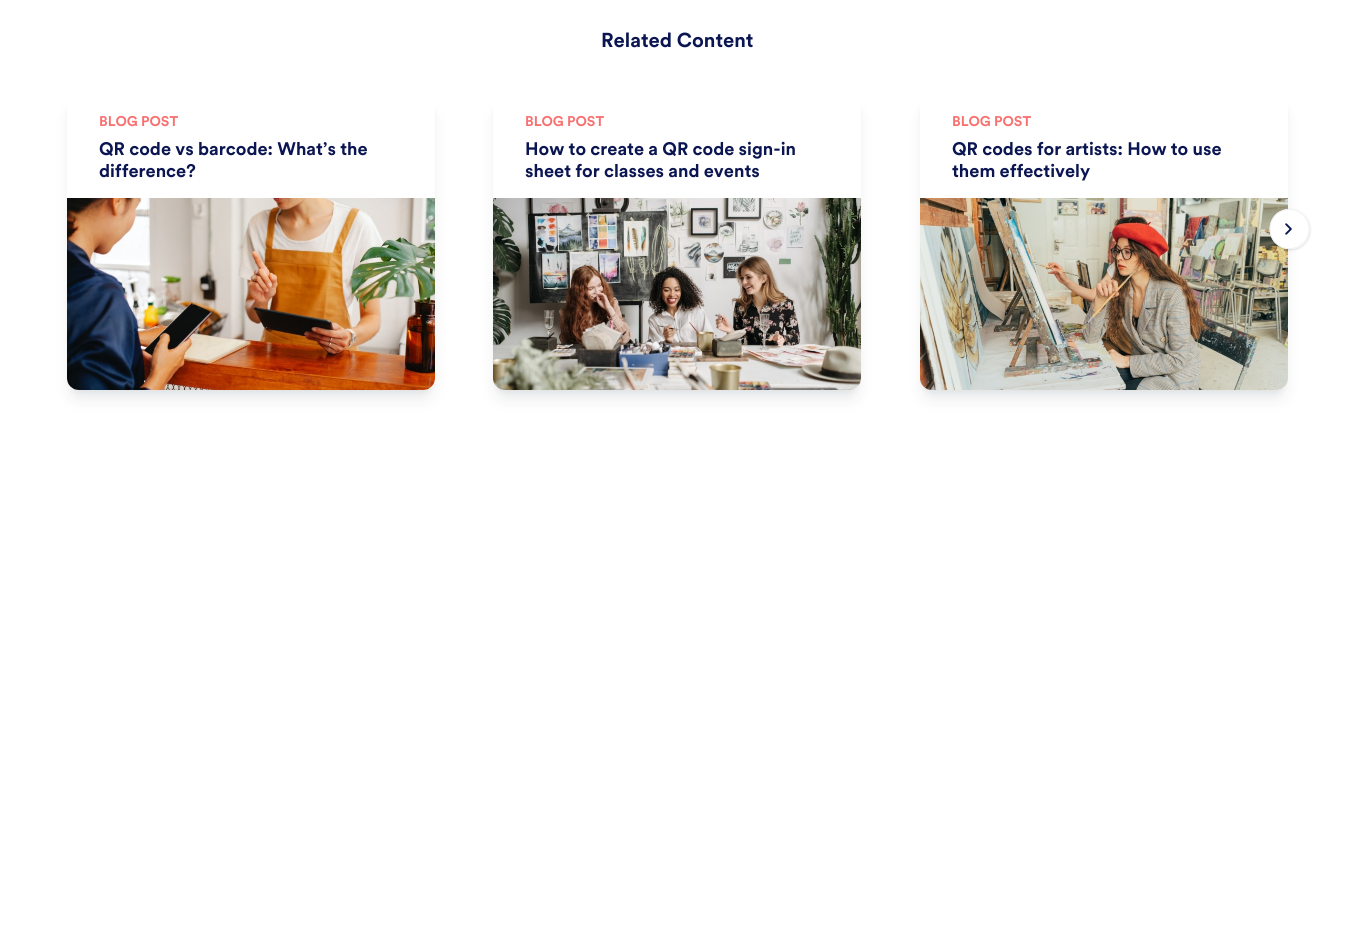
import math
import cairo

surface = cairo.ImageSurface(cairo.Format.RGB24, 1355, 941)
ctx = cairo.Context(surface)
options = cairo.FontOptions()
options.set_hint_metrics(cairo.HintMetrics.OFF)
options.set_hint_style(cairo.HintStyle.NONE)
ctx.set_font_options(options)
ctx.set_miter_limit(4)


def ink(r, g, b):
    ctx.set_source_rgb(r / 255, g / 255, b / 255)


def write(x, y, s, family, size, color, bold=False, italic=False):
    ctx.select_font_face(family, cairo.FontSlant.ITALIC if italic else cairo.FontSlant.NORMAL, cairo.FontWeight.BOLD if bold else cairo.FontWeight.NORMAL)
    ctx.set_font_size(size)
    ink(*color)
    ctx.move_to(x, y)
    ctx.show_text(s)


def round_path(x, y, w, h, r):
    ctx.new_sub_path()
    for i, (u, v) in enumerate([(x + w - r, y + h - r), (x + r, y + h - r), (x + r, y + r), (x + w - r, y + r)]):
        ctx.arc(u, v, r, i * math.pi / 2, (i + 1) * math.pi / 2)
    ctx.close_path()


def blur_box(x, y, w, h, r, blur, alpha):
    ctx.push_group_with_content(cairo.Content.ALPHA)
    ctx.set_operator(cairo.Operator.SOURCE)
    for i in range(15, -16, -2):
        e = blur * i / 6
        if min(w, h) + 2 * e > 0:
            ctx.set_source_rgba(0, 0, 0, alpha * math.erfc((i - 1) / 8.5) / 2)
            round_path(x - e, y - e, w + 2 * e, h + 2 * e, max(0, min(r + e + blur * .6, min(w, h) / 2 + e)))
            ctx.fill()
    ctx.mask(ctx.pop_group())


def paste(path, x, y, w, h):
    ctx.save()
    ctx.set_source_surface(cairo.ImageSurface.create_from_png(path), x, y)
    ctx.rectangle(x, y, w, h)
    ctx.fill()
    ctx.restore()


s1 = dict(family="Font", size=20, color=(10, 21, 81), bold=True)
s2 = dict(family="Font", size=14, color=(248, 113, 113), bold=True)
s3 = dict(family="Font", size=18, color=(10, 21, 81), bold=True)

ink(255, 255, 255)
ctx.paint()
write(601, 47, "Related Content", **s1)
ink(16, 24, 40)
blur_box(71, 112, 360, 286, 8, 8, 0.1)
blur_box(69, 102, 364, 290, 10, 3, 0.05)
ink(255, 255, 255)
round_path(67, 96, 368, 294, 12)
ctx.fill()
write(99, 126, "BLOG POST", **s2)
write(99, 155, "QR code vs barcode: What’s the", **s3)
write(99, 177, "difference?", **s3)
paste("pic1.png", 67, 198, 368, 192)
ink(16, 24, 40)
blur_box(497, 112, 360, 286, 8, 8, 0.1)
blur_box(495, 102, 364, 290, 10, 3, 0.05)
ink(255, 255, 255)
round_path(493, 96, 368, 294, 12)
ctx.fill()
write(525, 126, "BLOG POST", **s2)
write(525, 155, "How to create a QR code sign-in", **s3)
write(525, 177, "sheet for classes and events", **s3)
paste("pic2.png", 493, 198, 368, 192)
ink(16, 24, 40)
blur_box(924, 112, 360, 286, 8, 8, 0.1)
blur_box(922, 102, 364, 290, 10, 3, 0.05)
ink(255, 255, 255)
round_path(920, 96, 368, 294, 12)
ctx.fill()
write(952, 126, "BLOG POST", **s2)
write(952, 155, "QR codes for artists: How to use", **s3)
write(952, 177, "them effectively", **s3)
paste("pic3.png", 920, 198, 368, 192)
ink(16, 24, 40)
blur_box(1270, 210, 40, 40, 20, 1.5, 0.1)
blur_box(1270, 210, 40, 40, 20, 1, 0.06)
ink(255, 255, 255)
ctx.new_path()
ctx.move_to(1290, 249)
ctx.curve_to(1263, 249, 1263, 209, 1290, 209)
ctx.curve_to(1316, 209, 1316, 249, 1290, 249)
ctx.close_path()
ctx.fill()
ctx.new_path()
ctx.move_to(1289.5, 248.5)
ctx.curve_to(1278.5, 248.5, 1270, 240, 1270, 229)
ctx.curve_to(1270, 218, 1278.5, 209.5, 1289.5, 209.5)
ctx.curve_to(1300.5, 209.5, 1309, 218, 1309, 229)
ctx.curve_to(1309, 240, 1300.5, 248.5, 1289.5, 248.5)
ctx.close_path()
ink(241, 241, 244)
ctx.set_line_width(1)
ctx.stroke()
paste("pic4.png", 1285, 223, 7, 12)
surface.write_to_png("screenshot.png")
